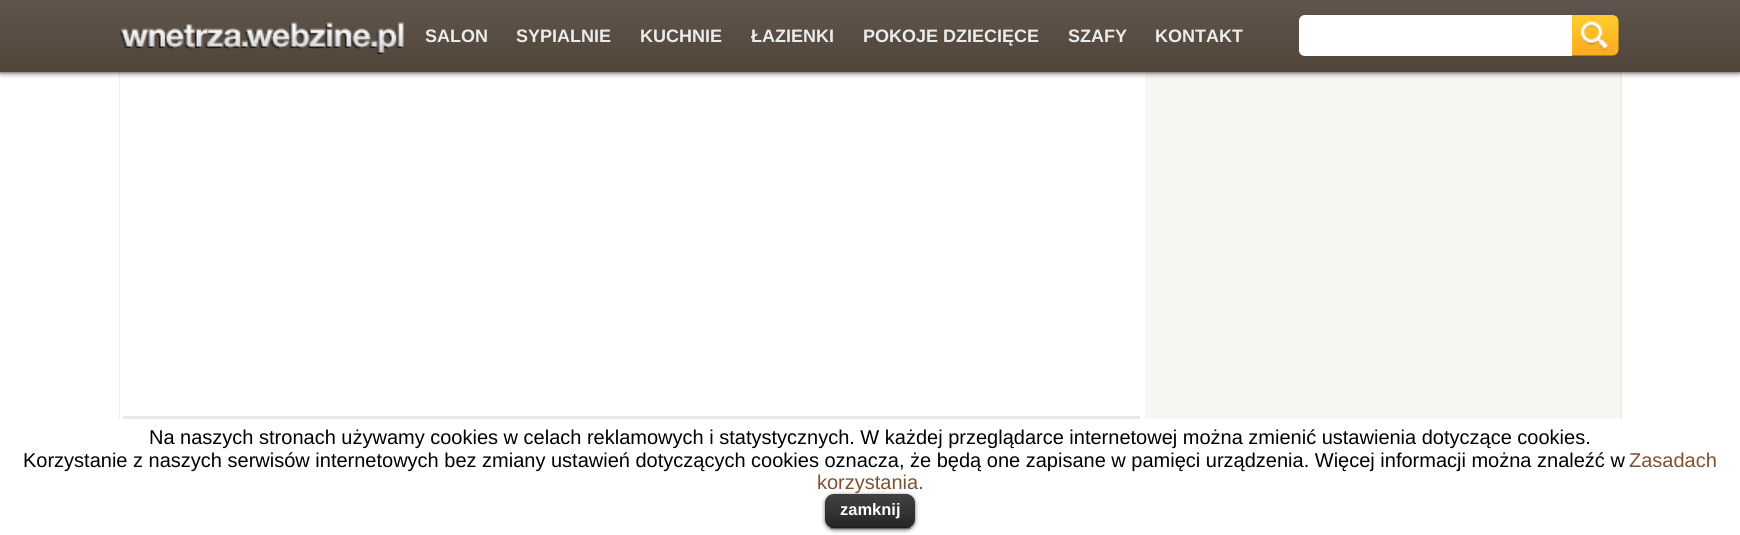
import math
import cairo

surface = cairo.ImageSurface(cairo.Format.RGB24, 1740, 535)
ctx = cairo.Context(surface)
options = cairo.FontOptions()
options.set_hint_metrics(cairo.HintMetrics.OFF)
options.set_hint_style(cairo.HintStyle.NONE)
ctx.set_font_options(options)
ctx.set_miter_limit(4)


def ink(r, g, b):
    ctx.set_source_rgb(r / 255, g / 255, b / 255)


def write(x, y, s, family, size, color, bold=False, italic=False):
    ctx.select_font_face(family, cairo.FontSlant.ITALIC if italic else cairo.FontSlant.NORMAL, cairo.FontWeight.BOLD if bold else cairo.FontWeight.NORMAL)
    ctx.set_font_size(size)
    ink(*color)
    ctx.move_to(x, y)
    ctx.show_text(s)


def block(x, y, w, h, *color):
    ink(*color)
    ctx.rectangle(x, y, w, h)
    ctx.fill()


def round_path(x, y, w, h, r):
    ctx.new_sub_path()
    for i, (u, v) in enumerate([(x + w - r, y + h - r), (x + r, y + h - r), (x + r, y + r), (x + w - r, y + r)]):
        ctx.arc(u, v, r, i * math.pi / 2, (i + 1) * math.pi / 2)
    ctx.close_path()


def blur_box(x, y, w, h, r, blur, alpha):
    ctx.push_group_with_content(cairo.Content.ALPHA)
    ctx.set_operator(cairo.Operator.SOURCE)
    for i in range(15, -16, -2):
        e = blur * i / 6
        if min(w, h) + 2 * e > 0:
            ctx.set_source_rgba(0, 0, 0, alpha * math.erfc((i - 1) / 8.5) / 2)
            round_path(x - e, y - e, w + 2 * e, h + 2 * e, max(0, min(r + e + blur * .6, min(w, h) / 2 + e)))
            ctx.fill()
    ctx.mask(ctx.pop_group())


def paste(path, x, y, w, h):
    ctx.save()
    ctx.set_source_surface(cairo.ImageSurface.create_from_png(path), x, y)
    ctx.rectangle(x, y, w, h)
    ctx.fill()
    ctx.restore()


s1 = dict(family="Liberation Sans", size=18, color=(236, 236, 236), bold=True)
s2 = dict(family="Liberation Sans", size=20, color=(0, 0, 0))
s3 = dict(family="Liberation Sans", size=20, color=(128, 80, 48))
s4 = dict(family="Liberation Sans", size=16.5, color=(255, 255, 255), bold=True)

ink(255, 255, 255)
ctx.paint()
block(1145, 72, 475, 347, 247, 246, 241)
block(1620, 72, 2, 347, 238, 238, 238)
block(119, 72, 1, 347, 238, 238, 238)
ink(17, 17, 17)
blur_box(0, 0, 1740, 72, 0, 3, 1)
gradient = cairo.LinearGradient(870, 0, 870, 72)
gradient.add_color_stop_rgba(0, 0.373, 0.329, 0.294, 1)
gradient.add_color_stop_rgba(1, 0.322, 0.275, 0.231, 1)
ctx.set_source(gradient)
ctx.rectangle(0, 0, 1740, 72)
ctx.fill()
paste("pic1.png", 120, 22, 284, 32)
write(425, 42, "SALON", **s1)
write(516, 42, "SYPIALNIE", **s1)
write(640, 42, "KUCHNIE", **s1)
write(751, 42, "ŁAZIENKI", **s1)
write(863, 42, "POKOJE DZIECIĘCE", **s1)
write(1068, 42, "SZAFY", **s1)
write(1155, 42, "KONTAKT", **s1)
ink(255, 255, 255)
ctx.new_path()
ctx.move_to(1305, 15)
ctx.line_to(1572, 15)
ctx.line_to(1572, 56)
ctx.line_to(1305, 56)
ctx.curve_to(1301.5, 56, 1299, 53.5, 1299, 50)
ctx.line_to(1299, 21)
ctx.curve_to(1299, 17.5, 1301.5, 15, 1305, 15)
ctx.close_path()
ctx.fill()
paste("pic2.png", 1572, 15, 47, 41)
block(123, 416, 1017, 3, 233, 232, 231)
write(149, 444, "Na naszych stronach używamy cookies w celach reklamowych i statystycznych. W każdej przeglądarce internetowej można zmienić ustawienia dotyczące cookies.", **s2)
write(23, 467, "Korzystanie z naszych serwisów internetowych bez zmiany ustawień dotyczących cookies oznacza, że będą one zapisane w pamięci urządzenia. Więcej informacji można znaleźć w", **s2)
write(1629, 467, "Zasadach", **s3)
write(817, 489, "korzystania.", **s3)
ink(0, 0, 0)
blur_box(825, 495, 90, 35, 9, 2, 0.6)
ink(0, 0, 0)
round_path(825, 494, 90, 34, 9)
ctx.fill()
paste("pic3.png", 825, 494, 90, 34)
ctx.set_source_rgba(0, 0, 0, 0.25)
ctx.rectangle(830, 527, 81, 2)
ctx.fill()
write(840, 515, "zamknij", **s4)
surface.write_to_png("screenshot.png")
